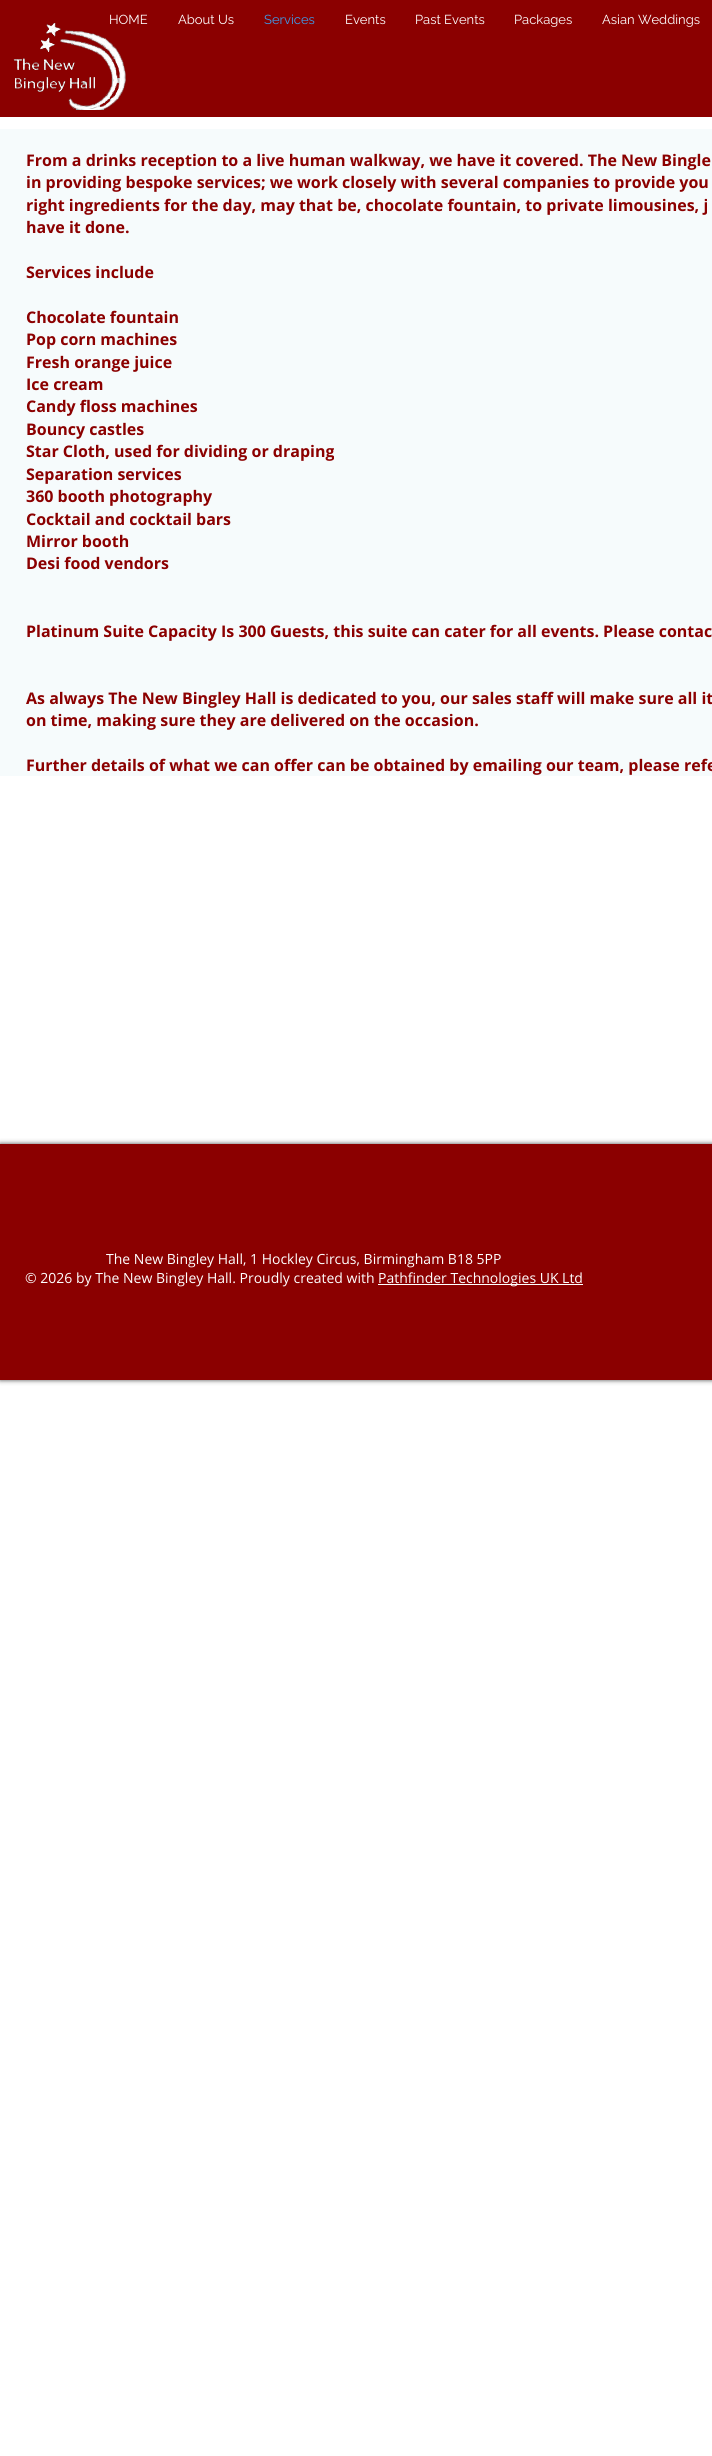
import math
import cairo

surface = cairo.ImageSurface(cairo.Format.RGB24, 712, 2456)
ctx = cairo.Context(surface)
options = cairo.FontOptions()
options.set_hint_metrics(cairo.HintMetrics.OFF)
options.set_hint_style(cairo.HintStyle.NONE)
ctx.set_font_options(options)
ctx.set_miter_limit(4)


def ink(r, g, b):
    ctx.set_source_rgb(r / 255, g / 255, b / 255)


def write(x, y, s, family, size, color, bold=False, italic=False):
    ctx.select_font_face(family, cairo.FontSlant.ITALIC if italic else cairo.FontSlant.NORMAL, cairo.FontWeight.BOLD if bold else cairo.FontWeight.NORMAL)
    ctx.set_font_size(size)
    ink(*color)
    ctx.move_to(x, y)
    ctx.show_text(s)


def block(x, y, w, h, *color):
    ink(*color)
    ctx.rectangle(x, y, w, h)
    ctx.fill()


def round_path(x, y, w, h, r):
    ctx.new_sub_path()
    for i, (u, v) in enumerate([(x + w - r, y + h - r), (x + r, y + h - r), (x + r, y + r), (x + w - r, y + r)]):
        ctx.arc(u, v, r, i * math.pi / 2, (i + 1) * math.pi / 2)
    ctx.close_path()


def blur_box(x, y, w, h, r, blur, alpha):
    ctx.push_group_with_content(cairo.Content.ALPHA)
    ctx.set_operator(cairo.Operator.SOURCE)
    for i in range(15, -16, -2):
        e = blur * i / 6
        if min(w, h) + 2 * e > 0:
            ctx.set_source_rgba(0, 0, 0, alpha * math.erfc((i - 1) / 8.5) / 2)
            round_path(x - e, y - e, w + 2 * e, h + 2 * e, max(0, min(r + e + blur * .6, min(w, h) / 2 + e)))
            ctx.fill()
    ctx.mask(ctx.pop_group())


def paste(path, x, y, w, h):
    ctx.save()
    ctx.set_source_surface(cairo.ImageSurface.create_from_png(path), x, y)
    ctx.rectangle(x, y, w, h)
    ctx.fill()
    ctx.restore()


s1 = dict(family="Raleway", size=13, color=(255, 255, 255))
s2 = dict(family="Raleway", size=13, color=(61, 155, 233))
s3 = dict(family="Open Sans", size=16, color=(139, 0, 0), bold=True)
s4 = dict(family="Open Sans", size=14, color=(255, 255, 255))

ink(255, 255, 255)
ctx.paint()
block(0, 0, 712, 117, 139, 0, 0)
write(109, 24, "HOME", **s1)
write(178, 24, "About Us", **s1)
write(264, 24, "Services", **s2)
write(345, 24, "Events", **s1)
write(415, 24, "Past Events", **s1)
write(514, 24, "Packages", **s1)
write(602, 24, "Asian Weddings", **s1)
paste("pic1.png", 13, 23, 113, 87)
block(0, 129, 712, 647, 246, 251, 252)
write(26, 166, "From a drinks reception to a live human walkway, we have it covered. The New Bingle", **s3)
write(26, 188, "in providing bespoke services; we work closely with several companies to provide you", **s3)
write(26, 211, "right ingredients for the day, may that be, chocolate fountain, to private limousines, j", **s3)
write(26, 233, "have it done.", **s3)
write(26, 278, "Services include", **s3)
write(26, 323, "Chocolate fountain", **s3)
write(26, 345, "Pop corn machines", **s3)
write(26, 368, "Fresh orange juice", **s3)
write(26, 390, "Ice cream", **s3)
write(26, 412, "Candy floss machines", **s3)
write(26, 435, "Bouncy castles", **s3)
write(26, 457, "Star Cloth, used for dividing or draping", **s3)
write(26, 480, "Separation services", **s3)
write(26, 502, "360 booth photography", **s3)
write(26, 525, "Cocktail and cocktail bars", **s3)
write(26, 547, "Mirror booth", **s3)
write(26, 569, "Desi food vendors", **s3)
write(26, 637, "Platinum Suite Capacity Is 300 Guests, this suite can cater for all events. Please contac", **s3)
write(26, 704, "As always The New Bingley Hall is dedicated to you, our sales staff will make sure all it", **s3)
write(26, 726, "on time, making sure they are delivered on the occasion.", **s3)
write(26, 771, "Further details of what we can offer can be obtained by emailing our team, please refe", **s3)
ink(0, 0, 0)
blur_box(0, 1144, 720, 236, 0, 2.5, 0.7)
block(0, 1144, 712, 236, 139, 0, 0)
write(106, 1264, "The New Bingley Hall, 1 Hockley Circus, Birmingham B18 5PP", **s4)
write(25, 1283, "© 2026 by The New Bingley Hall. Proudly created with", **s4)
block(378, 1284, 205, 1, 255, 255, 255)
write(378, 1283, "Pathfinder Technologies UK Ltd", **s4)
surface.write_to_png("screenshot.png")
